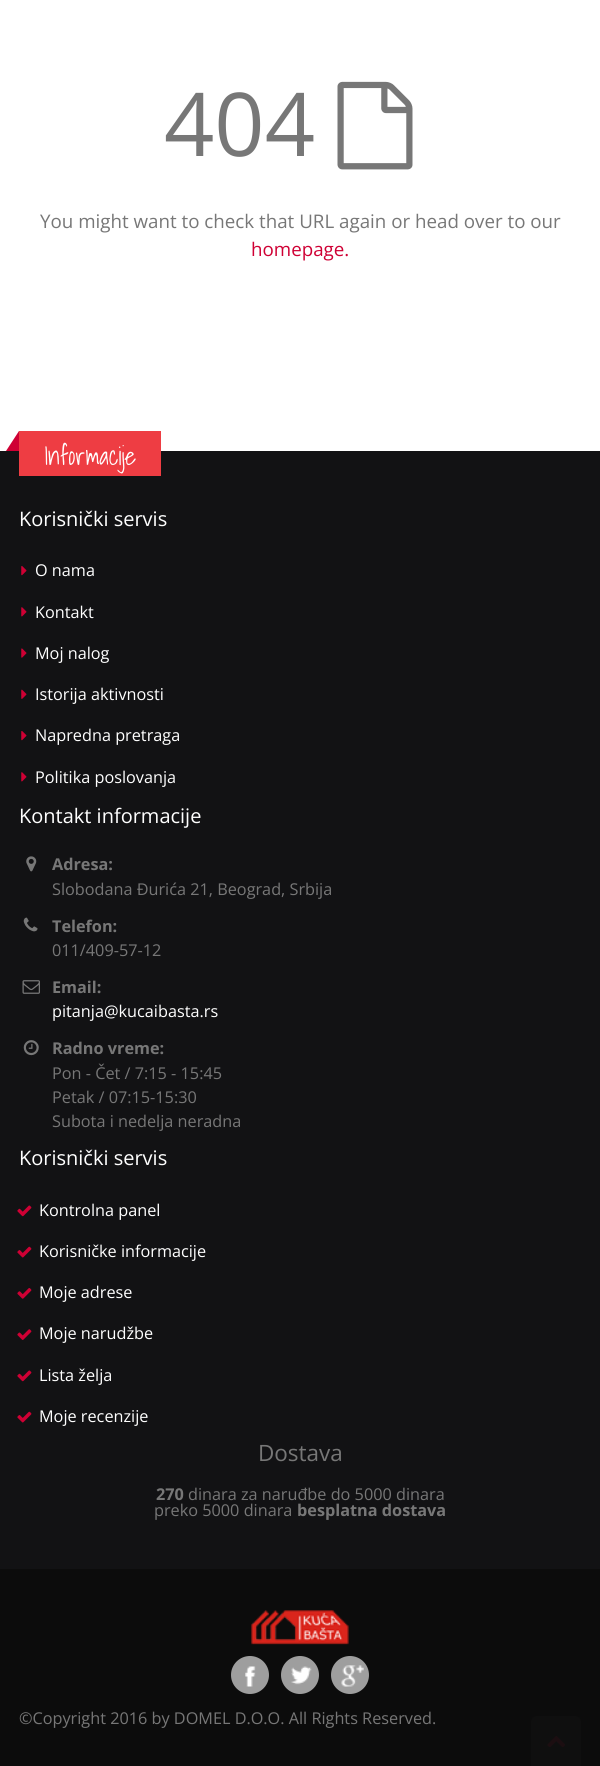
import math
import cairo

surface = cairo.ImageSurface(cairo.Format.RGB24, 600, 1766)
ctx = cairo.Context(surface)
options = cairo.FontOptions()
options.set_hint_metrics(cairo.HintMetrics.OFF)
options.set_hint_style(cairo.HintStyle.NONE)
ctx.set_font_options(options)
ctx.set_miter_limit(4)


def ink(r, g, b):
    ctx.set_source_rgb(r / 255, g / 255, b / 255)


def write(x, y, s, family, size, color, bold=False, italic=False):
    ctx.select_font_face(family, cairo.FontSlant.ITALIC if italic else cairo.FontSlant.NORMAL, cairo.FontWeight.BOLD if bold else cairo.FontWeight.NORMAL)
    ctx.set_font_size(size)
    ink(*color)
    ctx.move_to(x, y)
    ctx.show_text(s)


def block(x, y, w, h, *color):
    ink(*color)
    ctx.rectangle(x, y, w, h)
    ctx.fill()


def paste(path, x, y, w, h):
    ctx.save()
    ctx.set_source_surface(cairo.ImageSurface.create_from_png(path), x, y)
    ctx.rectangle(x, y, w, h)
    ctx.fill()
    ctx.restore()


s1 = dict(family="Open Sans", size=88, color=(119, 119, 119))
s2 = dict(family="Open Sans", size=18.75, color=(119, 119, 119))
s3 = dict(family="Open Sans", size=18.75, color=(207, 0, 52))
s4 = dict(family="Shadows Into Light Light", size=25, color=(255, 255, 255))
s5 = dict(family="Open Sans", size=20, color=(255, 255, 255))
s6 = dict(family="Open Sans", size=16.25, color=(255, 255, 255))
s7 = dict(family="Open Sans", size=16.25, color=(119, 119, 119), bold=True)
s8 = dict(family="Open Sans", size=16.25, color=(119, 119, 119))
s9 = dict(family="Open Sans", size=22.5, color=(119, 119, 119))

ink(255, 255, 255)
ctx.paint()
write(164, 156, "404", **s1)
paste("pic1.png", 337, 81, 76, 89)
write(40, 228, "You might want to check that URL again or head over to our", **s2)
write(251, 256, "homepage.", **s3)
block(0, 451, 600, 1118, 18, 18, 20)
block(19, 431, 142, 45, 238, 61, 67)
ink(207, 0, 52)
ctx.new_path()
ctx.move_to(19, 431)
ctx.line_to(19, 451)
ctx.line_to(6, 451)
ctx.close_path()
ctx.fill()
write(44, 465, "Informacije", **s4)
write(19, 526, "Korisnički servis", **s5)
paste("pic2.png", 21, 566, 6, 10)
write(35, 576, "O nama", **s6)
paste("pic3.png", 21, 607, 6, 10)
write(35, 618, "Kontakt", **s6)
paste("pic4.png", 21, 648, 6, 10)
write(35, 659, "Moj nalog", **s6)
paste("pic5.png", 21, 689, 6, 10)
write(35, 700, "Istorija aktivnosti", **s6)
paste("pic2.png", 21, 731, 6, 10)
write(35, 741, "Napredna pretraga", **s6)
paste("pic3.png", 21, 772, 6, 10)
write(35, 783, "Politika poslovanja", **s6)
write(19, 823, "Kontakt informacije", **s5)
paste("pic6.png", 26, 856, 11, 16)
write(52, 870, "Adresa:", **s7)
write(52, 895, "Slobodana Đurića 21, Beograd, Srbija", **s8)
paste("pic7.png", 23, 917, 15, 15)
write(52, 932, "Telefon:", **s7)
write(52, 956, "011/409-57-12", **s8)
paste("pic8.png", 22, 980, 18, 14)
write(52, 993, "Email:", **s7)
write(52, 1017, "pitanja@kucaibasta.rs", **s6)
paste("pic9.png", 23, 1040, 16, 16)
write(52, 1054, "Radno vreme:", **s7)
write(52, 1079, "Pon - Čet / 7:15 - 15:45", **s8)
write(52, 1103, "Petak / 07:15-15:30", **s8)
write(52, 1127, "Subota i nedelja neradna", **s8)
write(19, 1165, "Korisnički servis", **s5)
paste("pic10.png", 17, 1205, 15, 12)
write(39, 1216, "Kontrolna panel", **s6)
paste("pic11.png", 17, 1246, 15, 12)
write(39, 1257, "Korisničke informacije", **s6)
paste("pic12.png", 17, 1288, 15, 11)
write(39, 1298, "Moje adrese", **s6)
paste("pic13.png", 17, 1329, 15, 11)
write(39, 1339, "Moje narudžbe", **s6)
paste("pic10.png", 17, 1370, 15, 12)
write(39, 1381, "Lista želja", **s6)
paste("pic11.png", 17, 1411, 15, 12)
write(39, 1422, "Moje recenzije", **s6)
write(258, 1461, "Dostava", **s9)
write(156, 1500, "270", **s7)
write(188, 1500, "dinara za naruđbe do 5000 dinara", **s8)
write(154, 1516, "preko 5000 dinara", **s8)
write(297, 1516, "besplatna dostava", **s7)
block(0, 1569, 600, 197, 12, 12, 12)
paste("pic14.png", 251, 1610, 98, 35)
ink(158, 158, 158)
ctx.arc(250, 1675, 19, 0, 2 * math.pi)
ctx.fill()
paste("pic15.png", 245, 1666, 11, 21)
ctx.arc(300, 1675, 19, 0, 2 * math.pi)
ctx.fill()
paste("pic16.png", 291, 1666, 21, 19)
ctx.arc(350, 1675, 19, 0, 2 * math.pi)
ctx.fill()
paste("pic17.png", 341, 1665, 23, 22)
write(19, 1724, "©Copyright 2016 by DOMEL D.O.O. All Rights Reserved.", **s8)
ink(15, 15, 15)
ctx.new_path()
ctx.move_to(537, 1716)
ctx.line_to(575, 1716)
ctx.curve_to(578.5, 1716, 581, 1718.5, 581, 1722)
ctx.line_to(581, 1766)
ctx.line_to(531, 1766)
ctx.line_to(531, 1722)
ctx.curve_to(531, 1718.5, 533.5, 1716, 537, 1716)
ctx.close_path()
ctx.fill()
paste("pic18.png", 547, 1736, 18, 11)
surface.write_to_png("screenshot.png")
